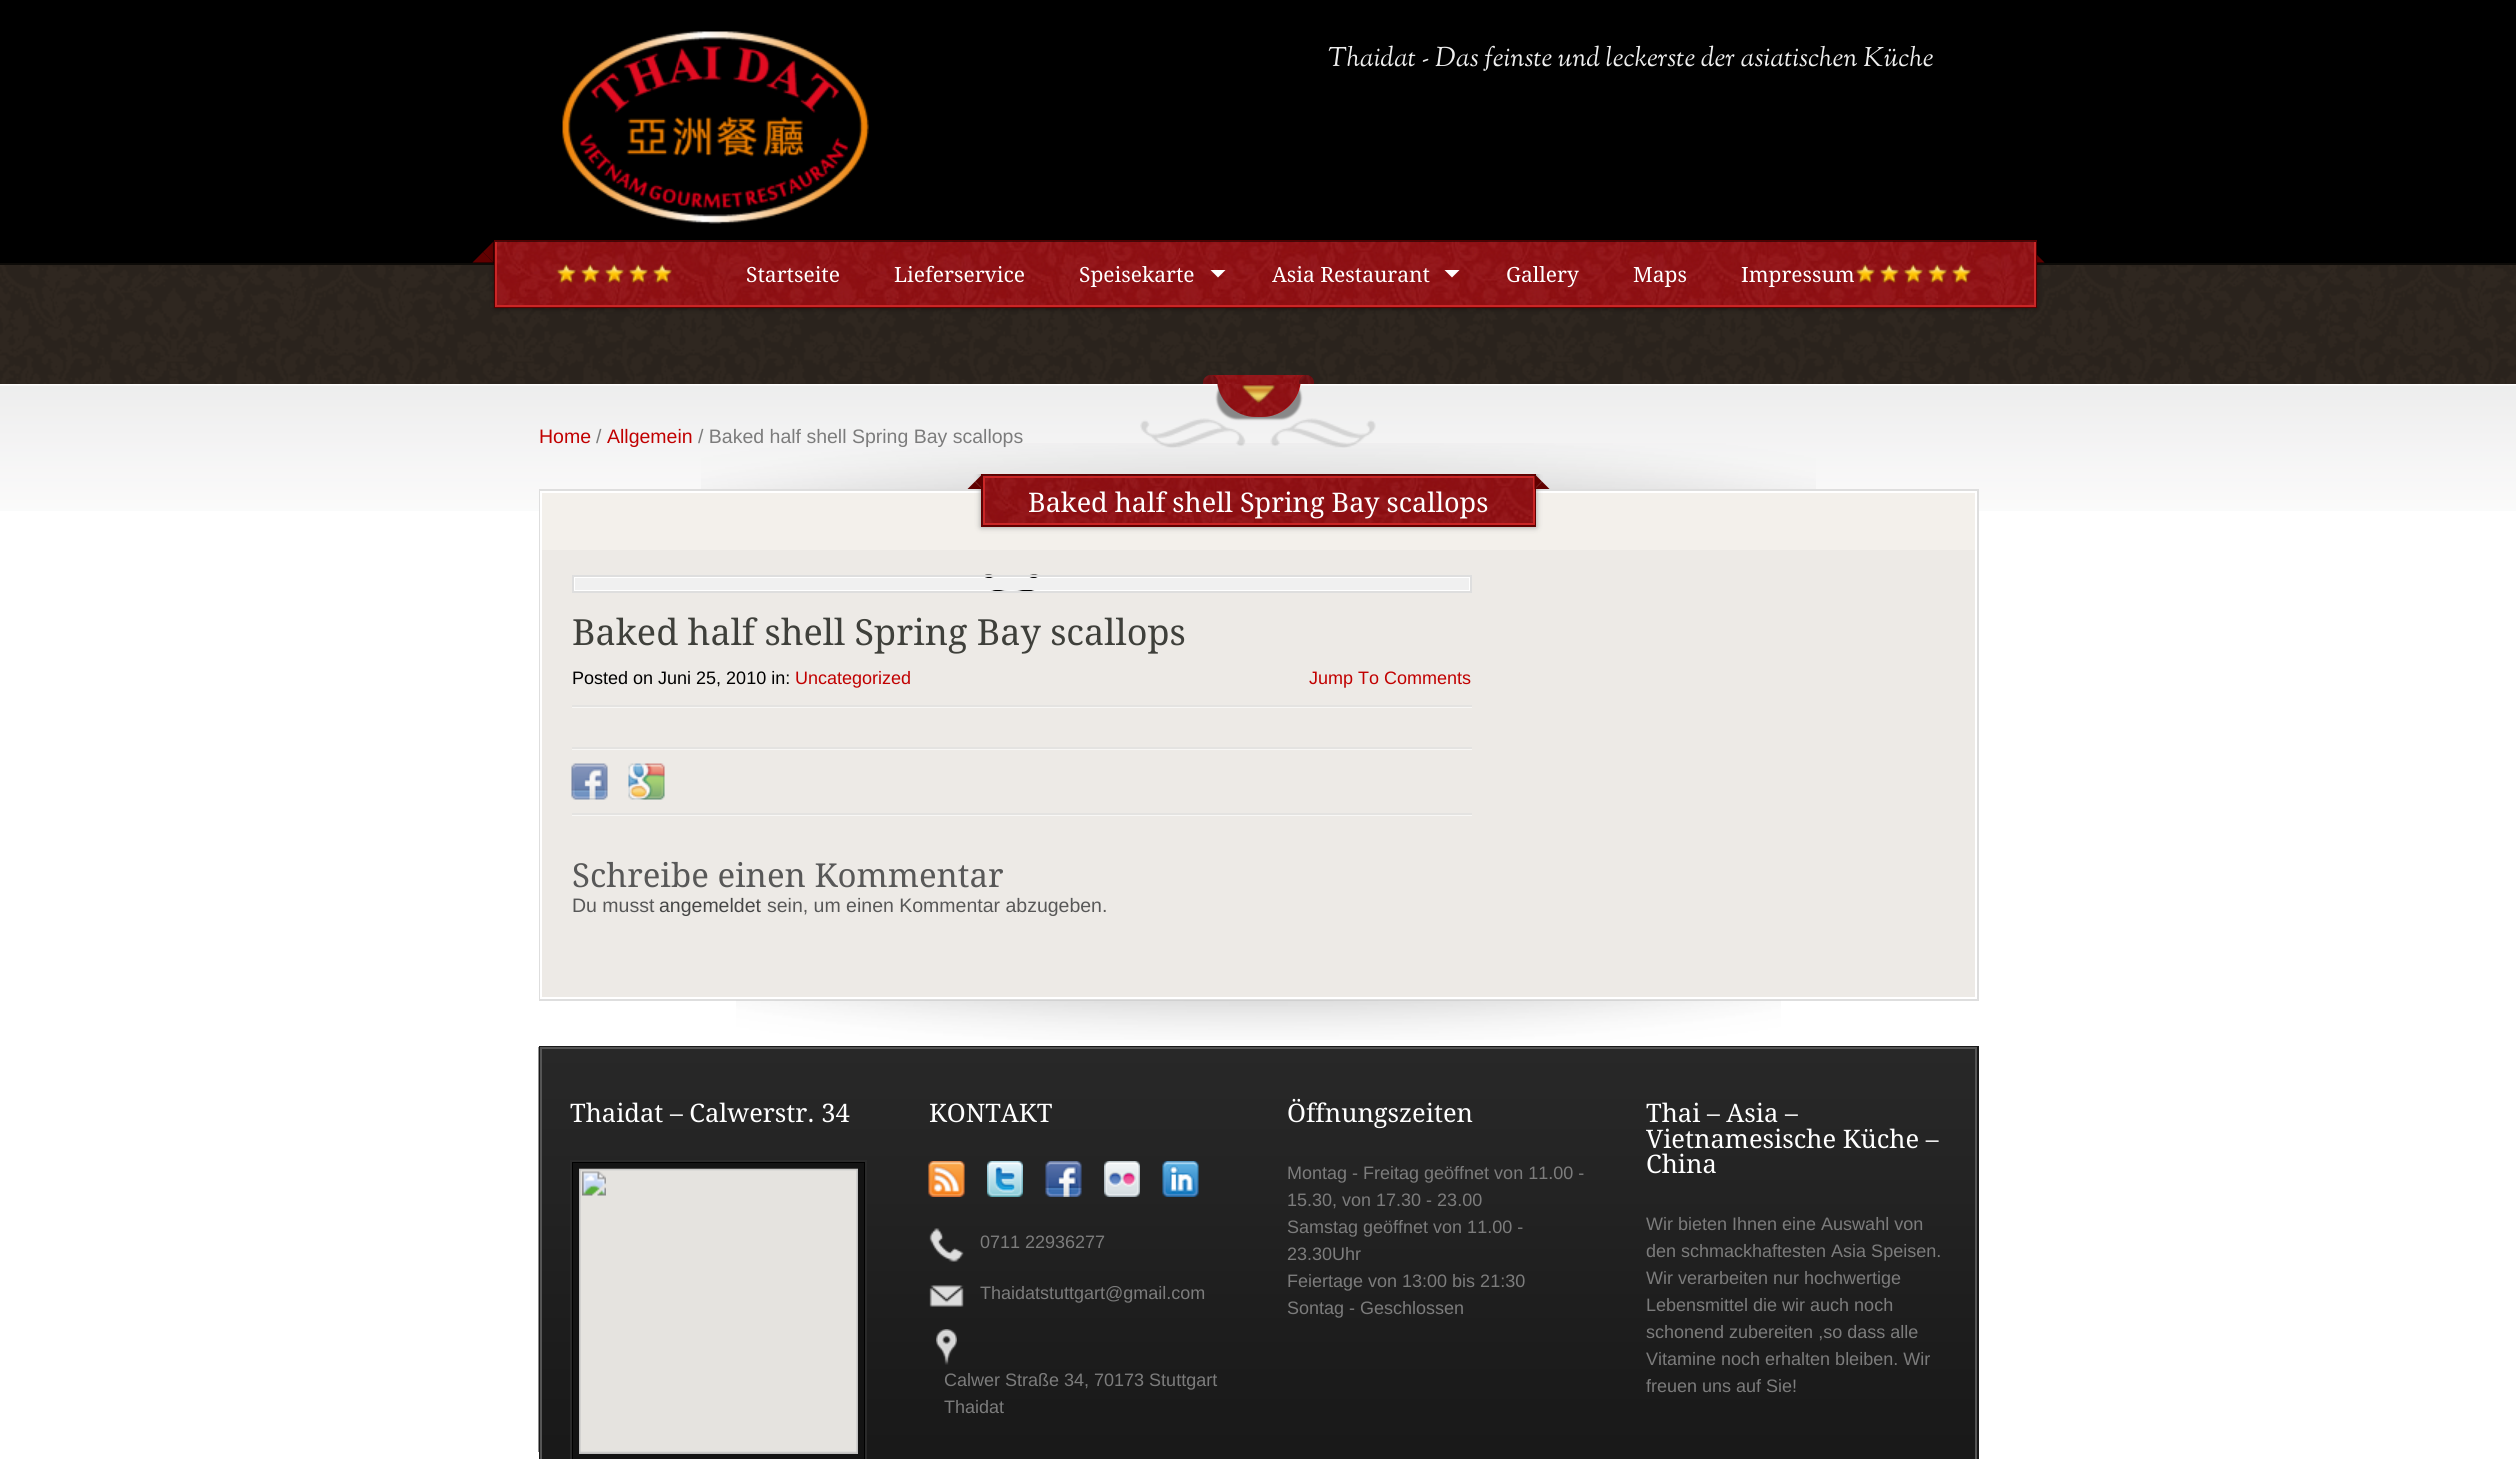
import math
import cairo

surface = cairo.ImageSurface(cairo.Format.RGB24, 2516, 1459)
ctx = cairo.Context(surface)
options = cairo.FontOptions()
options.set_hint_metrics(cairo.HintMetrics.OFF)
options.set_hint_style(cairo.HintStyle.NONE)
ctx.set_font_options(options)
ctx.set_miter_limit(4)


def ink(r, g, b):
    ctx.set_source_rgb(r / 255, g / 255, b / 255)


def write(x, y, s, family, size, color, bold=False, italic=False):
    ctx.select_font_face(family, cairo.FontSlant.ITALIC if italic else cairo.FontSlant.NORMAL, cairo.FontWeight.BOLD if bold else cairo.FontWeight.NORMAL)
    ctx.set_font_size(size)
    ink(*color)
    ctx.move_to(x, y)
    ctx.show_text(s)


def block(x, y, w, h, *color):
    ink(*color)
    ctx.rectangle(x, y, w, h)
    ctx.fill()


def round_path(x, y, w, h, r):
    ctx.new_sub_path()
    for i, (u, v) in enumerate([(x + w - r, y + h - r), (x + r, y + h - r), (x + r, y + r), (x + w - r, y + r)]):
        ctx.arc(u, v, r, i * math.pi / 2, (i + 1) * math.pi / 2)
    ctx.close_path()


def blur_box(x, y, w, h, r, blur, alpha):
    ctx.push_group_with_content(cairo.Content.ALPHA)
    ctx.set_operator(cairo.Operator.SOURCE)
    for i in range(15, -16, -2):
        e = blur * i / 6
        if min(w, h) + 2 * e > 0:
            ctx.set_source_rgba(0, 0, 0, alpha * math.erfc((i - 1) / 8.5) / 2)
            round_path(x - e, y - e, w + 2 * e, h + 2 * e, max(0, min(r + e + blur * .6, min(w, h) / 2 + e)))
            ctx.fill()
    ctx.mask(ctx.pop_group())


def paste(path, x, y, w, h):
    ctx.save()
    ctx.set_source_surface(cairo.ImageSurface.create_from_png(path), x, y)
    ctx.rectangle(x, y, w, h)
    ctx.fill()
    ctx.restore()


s1 = dict(family="OFL Sorts Mill Goudy TT Medium", size=27, color=(238, 238, 238), italic=True)
s2 = dict(family="Droid Serif", size=21, color=(255, 255, 255))
s3 = dict(family="Liberation Sans", size=19.5, color=(193, 0, 0))
s4 = dict(family="Liberation Sans", size=19.5, color=(124, 124, 124))
s5 = dict(family="Droid Serif", size=27, color=(255, 255, 255))
s6 = dict(family="Droid Serif", size=36, color=(63, 64, 59))
s7 = dict(family="Liberation Sans", size=18, color=(0, 0, 0))
s8 = dict(family="Liberation Sans", size=18, color=(193, 0, 0))
s9 = dict(family="Droid Serif", size=33, color=(88, 88, 88))
s10 = dict(family="Liberation Sans", size=19.5, color=(88, 88, 88))
s11 = dict(family="Liberation Sans", size=19.5, color=(70, 70, 70))
s12 = dict(family="Droid Serif", size=25.5, color=(255, 255, 255))
s13 = dict(family="Liberation Sans", size=18, color=(124, 124, 124))

ink(255, 255, 255)
ctx.paint()
block(0, 0, 2516, 263, 0, 0, 0)
paste("pic1.png", 562, 31, 307, 193)
write(1328, 66, "Thaidat - Das feinste und leckerste der asiatischen Küche", **s1)
block(0, 265, 2516, 119, 47, 39, 32)
block(0, 263, 2516, 2, 13, 11, 8)
paste("pic2.png", 0, 265, 2516, 119)
ink(97, 0, 0)
ctx.new_path()
ctx.move_to(493.5, 241.5)
ctx.line_to(493.5, 262.5)
ctx.line_to(483, 252)
ctx.close_path()
ctx.fill()
ctx.new_path()
ctx.move_to(493.5, 262.5)
ctx.line_to(472.5, 262.5)
ctx.line_to(483, 252)
ctx.close_path()
ctx.fill()
ctx.new_path()
ctx.move_to(2044.5, 262.5)
ctx.line_to(2023.5, 262.5)
ctx.line_to(2034, 252)
ctx.close_path()
ctx.fill()
block(497, 242, 1537, 63, 193, 0, 0)
ctx.rectangle(495, 241, 1541, 66)
ink(97, 0, 0)
ctx.stroke()
paste("pic3.png", 495, 241, 1541, 64)
block(2034, 242, 2, 64, 202, 38, 38)
block(495, 305, 1541, 2, 202, 38, 38)
block(495, 242, 2, 64, 202, 38, 38)
paste("pic4.png", 556, 264, 20, 20)
paste("pic5.png", 580, 264, 20, 20)
paste("pic6.png", 604, 264, 20, 20)
paste("pic7.png", 628, 264, 20, 20)
paste("pic8.png", 652, 264, 20, 20)
ctx.save()
ctx.set_fill_rule(cairo.FillRule.EVEN_ODD)
ctx.new_path()
ctx.move_to(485, 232)
ctx.line_to(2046, 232)
ctx.line_to(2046, 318)
ctx.line_to(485, 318)
ctx.close_path()
ctx.move_to(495, 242)
ctx.line_to(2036, 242)
ctx.line_to(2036, 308)
ctx.line_to(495, 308)
ctx.close_path()
ctx.clip()
ink(0, 0, 0)
blur_box(495, 242, 1541, 66, 0, 3, 0.5)
ctx.restore()
write(746, 282, "Startseite", **s2)
write(894, 282, "Lieferservice", **s2)
write(1079, 282, "Speisekarte", **s2)
ctx.new_path()
ctx.move_to(1210.5, 270)
ctx.line_to(1225.5, 270)
ctx.line_to(1218, 277.5)
ctx.close_path()
ctx.fill()
write(1272, 282, "Asia Restaurant", **s2)
ctx.new_path()
ctx.move_to(1444.5, 270)
ctx.line_to(1459.5, 270)
ctx.line_to(1452, 277.5)
ctx.close_path()
ctx.fill()
write(1506, 282, "Gallery", **s2)
write(1633, 282, "Maps", **s2)
write(1741, 282, "Impressum", **s2)
paste("pic9.png", 1855, 264, 20, 20)
paste("pic10.png", 1879, 264, 20, 20)
paste("pic11.png", 1903, 264, 20, 20)
paste("pic12.png", 1927, 264, 20, 20)
paste("pic13.png", 1951, 264, 20, 20)
paste("pic14.png", 0, 385, 2516, 126)
paste("pic20.png", 1140, 418, 236, 30)
ink(136, 136, 136)
blur_box(1217, 377, 84, 42, 39, 1, 1)
ink(193, 0, 0)
ctx.new_path()
ctx.move_to(1217, 375)
ctx.line_to(1301, 375)
ctx.line_to(1301, 378)
ctx.curve_to(1301, 399.5, 1283.5, 417, 1262, 417)
ctx.line_to(1256, 417)
ctx.curve_to(1234.5, 417, 1217, 399.5, 1217, 378)
ctx.close_path()
ctx.fill()
block(1212, 375, 93, 9, 193, 0, 0)
paste("pic17.png", 1212, 375, 93, 9)
ink(145, 0, 0)
ctx.new_path()
ctx.move_to(1210.5, 375)
ctx.curve_to(1214.5, 375, 1218, 378.5, 1218, 382.5)
ctx.line_to(1218, 384)
ctx.line_to(1203, 384)
ctx.line_to(1203, 382.5)
ctx.curve_to(1203, 378.5, 1206.5, 375, 1210.5, 375)
ctx.close_path()
ctx.fill()
paste("pic15.png", 1203, 375, 15, 9)
paste("pic16.png", 1217, 384, 83, 33)
ctx.new_path()
ctx.move_to(1306.5, 375)
ctx.curve_to(1310.5, 375, 1314, 378.5, 1314, 382.5)
ctx.line_to(1314, 384)
ctx.line_to(1299, 384)
ctx.line_to(1299, 382.5)
ctx.curve_to(1299, 378.5, 1302.5, 375, 1306.5, 375)
ctx.close_path()
ctx.fill()
paste("pic18.png", 1299, 375, 15, 9)
paste("pic19.png", 1242, 385, 33, 19)
write(539, 443, "Home", **s3)
write(596, 443, "/", **s4)
write(607, 443, "Allgemein", **s3)
paste("pic21.png", 701, 443, 1115, 46)
write(698, 443, "/ Baked half shell Spring Bay scallops", **s4)
ctx.rectangle(540, 490, 1438, 510)
ink(222, 222, 222)
ctx.stroke()
block(542, 550, 1433, 447, 237, 234, 230)
block(542, 493, 1433, 57, 243, 240, 235)
ctx.rectangle(541, 492, 1435, 506)
ink(255, 255, 255)
ctx.stroke()
ctx.save()
ctx.rectangle(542, 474, 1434, 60)
ctx.clip()
ink(153, 153, 153)
blur_box(981, 474, 555, 53, 0, 3, 1)
ctx.restore()
block(985, 478, 548, 45, 193, 0, 0)
ctx.rectangle(982, 475, 553, 51)
ink(97, 0, 0)
ctx.stroke()
paste("pic22.png", 982, 475, 553, 50)
ctx.new_path()
ctx.move_to(982.5, 474)
ctx.line_to(982.5, 489)
ctx.line_to(975, 481.5)
ctx.close_path()
ctx.fill()
ctx.new_path()
ctx.move_to(982.5, 489)
ctx.line_to(967.5, 489)
ctx.line_to(975, 481.5)
ctx.close_path()
ctx.fill()
ctx.rectangle(984, 477, 550, 47)
ink(202, 38, 38)
ctx.stroke()
ink(97, 0, 0)
ctx.new_path()
ctx.move_to(1549.5, 489)
ctx.line_to(1534.5, 489)
ctx.line_to(1542, 481.5)
ctx.close_path()
ctx.fill()
ctx.new_path()
ctx.move_to(1534.5, 489)
ctx.line_to(1534.5, 474)
ctx.line_to(1542, 481.5)
ctx.close_path()
ctx.fill()
write(1028, 512, "Baked half shell Spring Bay scallops", **s5)
block(574, 577, 896, 14, 255, 255, 255)
paste("pic23.png", 985, 574, 53, 17)
ctx.rectangle(573, 576, 898, 16)
ink(222, 222, 222)
ctx.stroke()
block(575, 578, 894, 12, 240, 240, 240)
write(572, 645, "Baked half shell Spring Bay scallops", **s6)
write(572, 684, "Posted on Juni 25, 2010 in:", **s7)
write(795, 684, "Uncategorized", **s8)
write(1309, 684, "Jump To Comments", **s8)
block(572, 707, 900, 1, 248, 247, 245)
block(572, 705, 900, 2, 228, 227, 225)
block(572, 749, 900, 1, 248, 247, 245)
block(572, 747, 900, 2, 228, 227, 225)
paste("pic24.png", 571, 763, 37, 37)
paste("pic25.png", 628, 763, 37, 37)
block(572, 815, 900, 1, 248, 247, 245)
block(572, 813, 900, 2, 228, 227, 225)
write(572, 887, "Schreibe einen Kommentar", **s9)
write(572, 912, "Du musst", **s10)
write(659, 912, "angemeldet", **s11)
write(767, 912, "sein, um einen Kommentar abzugeben.", **s10)
paste("pic26.png", 736, 1000, 1045, 40)
block(542, 1452, 1433, 7, 25, 25, 25)
paste("pic27.png", 538, 1047, 1437, 405)
ctx.rectangle(540, 1047, 1438, 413)
ctx.stroke()
ctx.rectangle(541, 1048, 1435, 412)
ink(85, 85, 85)
ctx.stroke()
write(570, 1122, "Thaidat – Calwerstr. 34", **s12)
ink(0, 0, 0)
ctx.rectangle(571, 1161, 295, 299)
ctx.fill_preserve()
ink(42, 42, 42)
ctx.stroke()
ctx.rectangle(576, 1166, 285, 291)
ink(19, 19, 19)
ctx.set_line_width(6)
ctx.stroke()
paste("pic28.png", 579, 1168, 279, 286)
write(929, 1122, "KONTAKT", **s12)
paste("pic29.png", 928, 1161, 37, 36)
paste("pic30.png", 987, 1161, 36, 36)
paste("pic31.png", 1045, 1161, 37, 36)
paste("pic32.png", 1104, 1161, 36, 36)
paste("pic33.png", 1162, 1161, 37, 36)
paste("pic34.png", 929, 1228, 35, 34)
write(980, 1248, "0711 22936277", **s13)
paste("pic35.png", 929, 1285, 35, 22)
write(980, 1299, "Thaidatstuttgart@gmail.com", **s13)
paste("pic36.png", 936, 1329, 21, 36)
write(944, 1386, "Calwer Straße 34, 70173 Stuttgart", **s13)
write(944, 1413, "Thaidat", **s13)
write(1287, 1122, "Öffnungszeiten", **s12)
write(1287, 1179, "Montag - Freitag geöffnet von 11.00 -", **s13)
write(1287, 1206, "15.30, von 17.30 - 23.00", **s13)
write(1287, 1233, "Samstag geöffnet von 11.00 -", **s13)
write(1287, 1260, "23.30Uhr", **s13)
write(1287, 1287, "Feiertage von 13:00 bis 21:30", **s13)
write(1287, 1314, "Sontag - Geschlossen", **s13)
write(1646, 1122, "Thai – Asia –", **s12)
write(1646, 1148, "Vietnamesische Küche –", **s12)
write(1646, 1173, "China", **s12)
write(1646, 1230, "Wir bieten Ihnen eine Auswahl von", **s13)
write(1646, 1257, "den schmackhaftesten Asia Speisen.", **s13)
write(1646, 1284, "Wir verarbeiten nur hochwertige", **s13)
write(1646, 1311, "Lebensmittel die wir auch noch", **s13)
write(1646, 1338, "schonend zubereiten ,so dass alle", **s13)
write(1646, 1365, "Vitamine noch erhalten bleiben. Wir", **s13)
write(1646, 1392, "freuen uns auf Sie!", **s13)
surface.write_to_png("screenshot.png")
